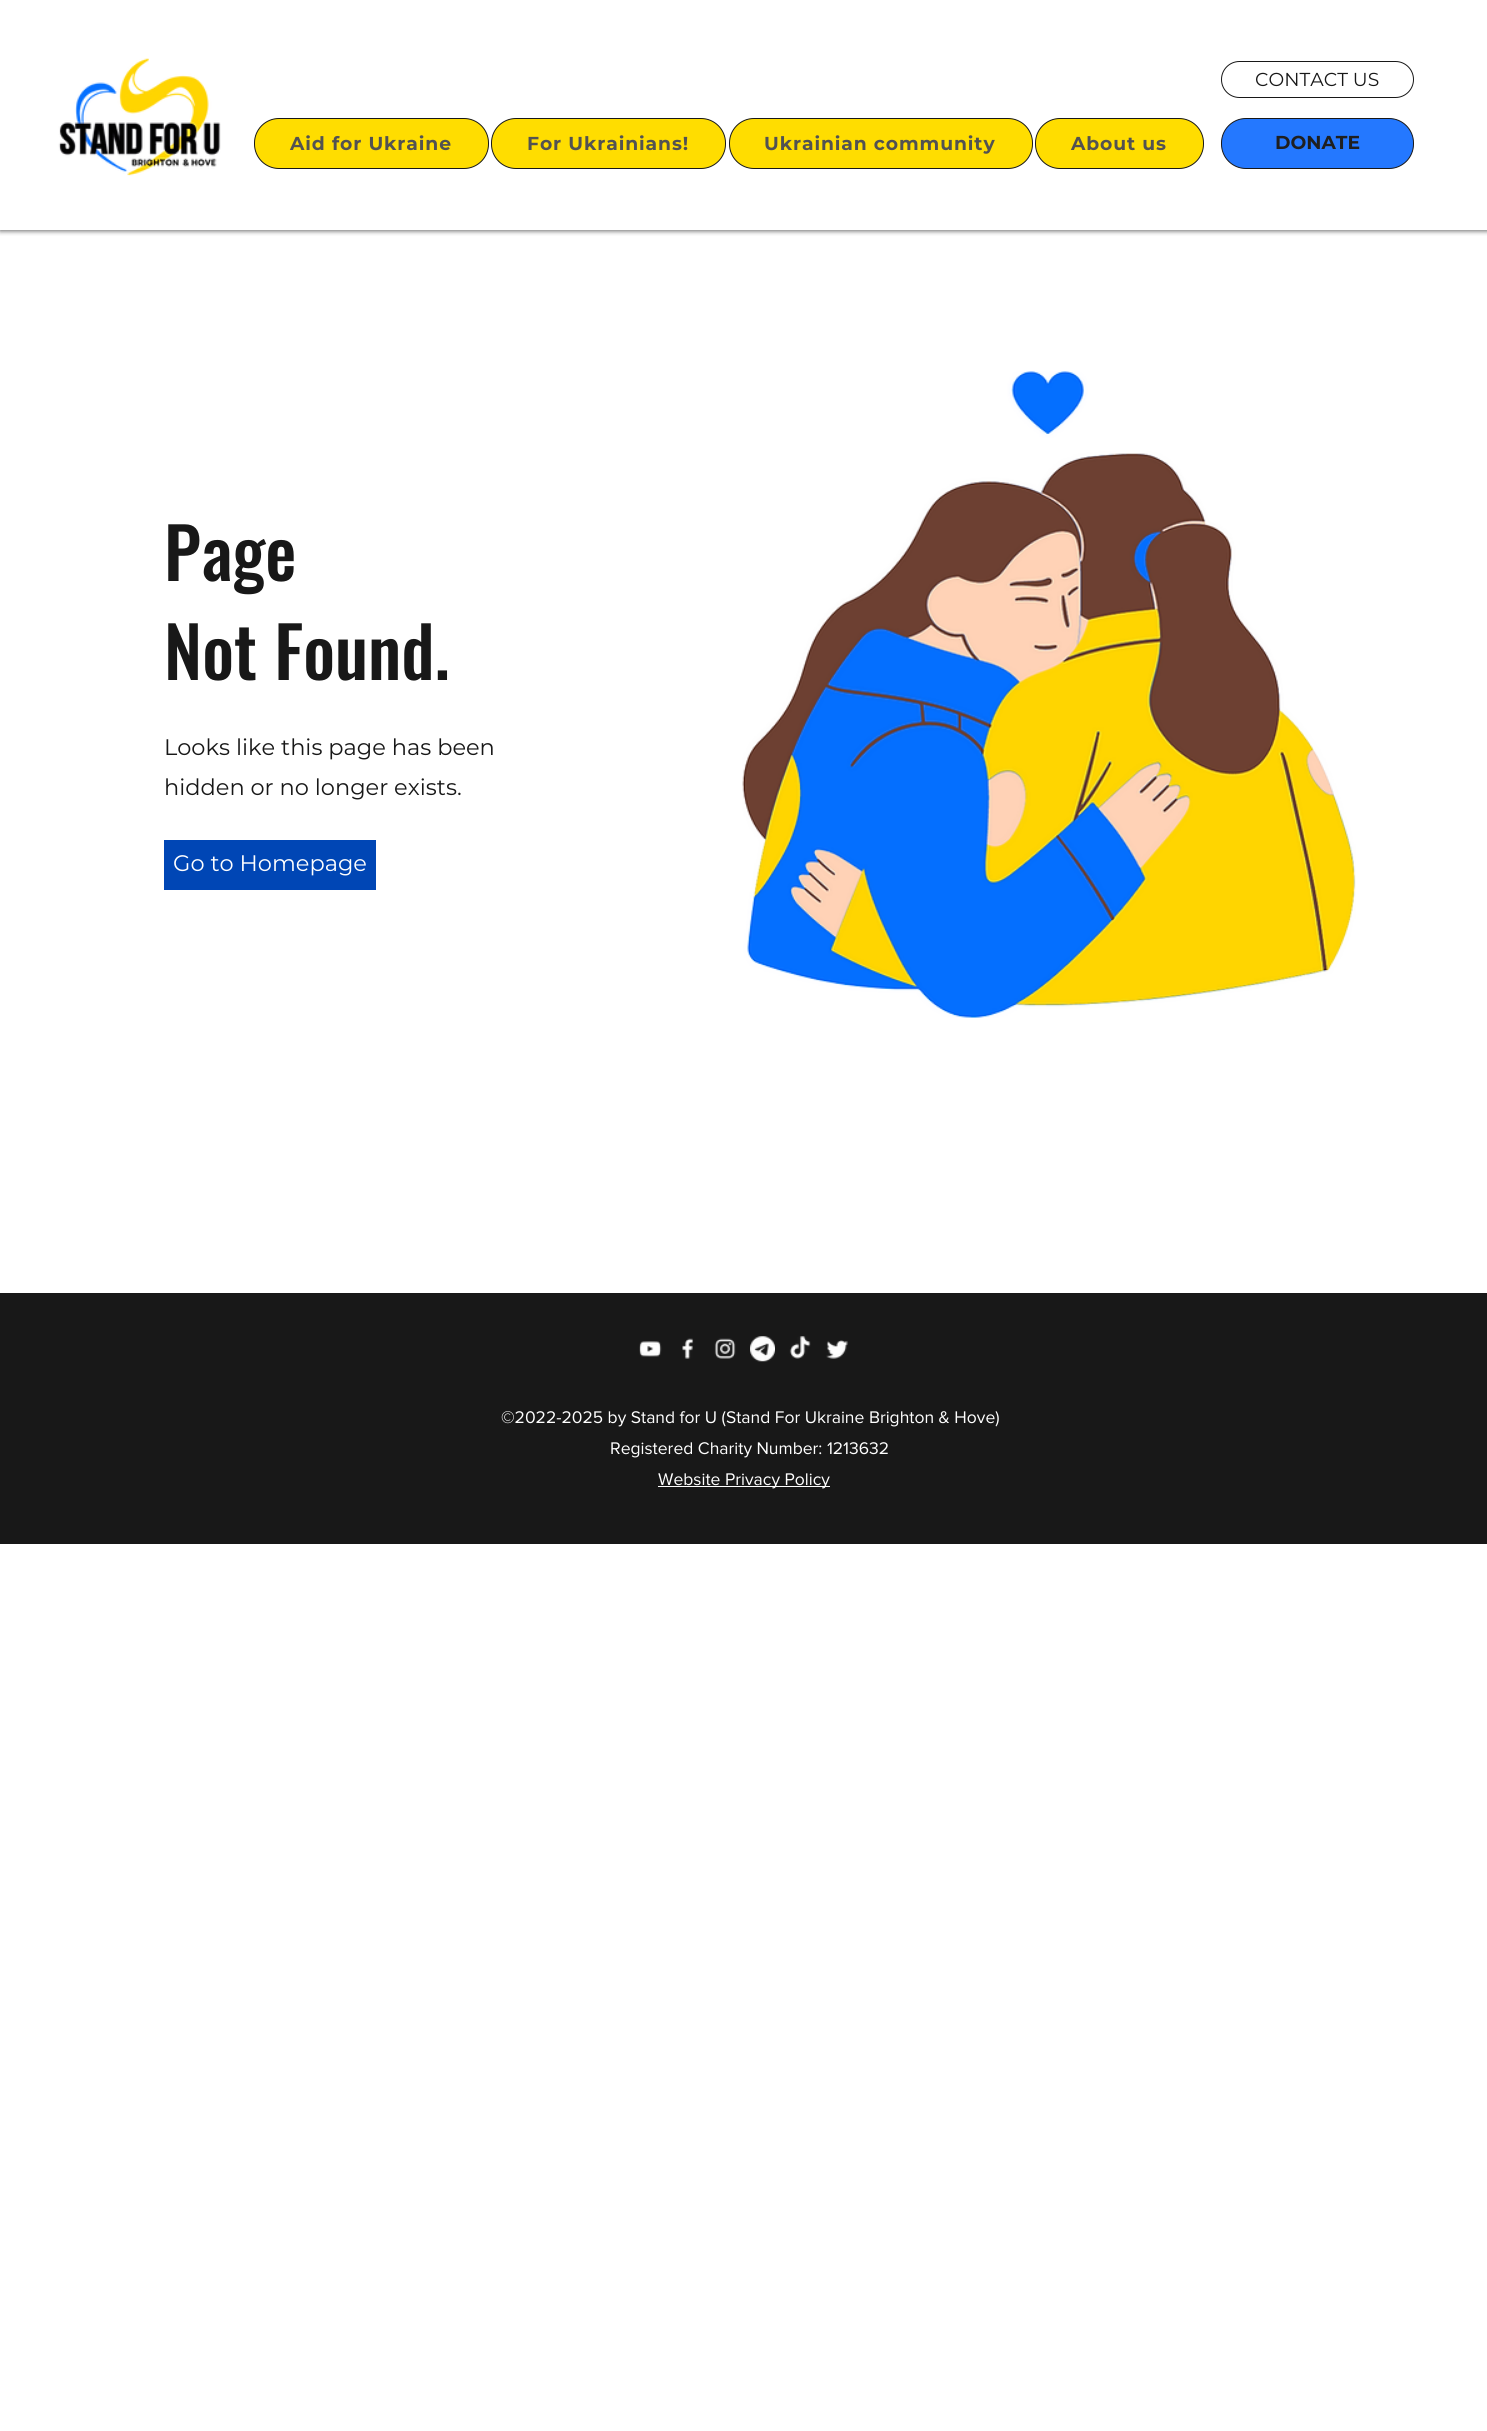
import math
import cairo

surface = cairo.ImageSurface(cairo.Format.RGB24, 1487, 2431)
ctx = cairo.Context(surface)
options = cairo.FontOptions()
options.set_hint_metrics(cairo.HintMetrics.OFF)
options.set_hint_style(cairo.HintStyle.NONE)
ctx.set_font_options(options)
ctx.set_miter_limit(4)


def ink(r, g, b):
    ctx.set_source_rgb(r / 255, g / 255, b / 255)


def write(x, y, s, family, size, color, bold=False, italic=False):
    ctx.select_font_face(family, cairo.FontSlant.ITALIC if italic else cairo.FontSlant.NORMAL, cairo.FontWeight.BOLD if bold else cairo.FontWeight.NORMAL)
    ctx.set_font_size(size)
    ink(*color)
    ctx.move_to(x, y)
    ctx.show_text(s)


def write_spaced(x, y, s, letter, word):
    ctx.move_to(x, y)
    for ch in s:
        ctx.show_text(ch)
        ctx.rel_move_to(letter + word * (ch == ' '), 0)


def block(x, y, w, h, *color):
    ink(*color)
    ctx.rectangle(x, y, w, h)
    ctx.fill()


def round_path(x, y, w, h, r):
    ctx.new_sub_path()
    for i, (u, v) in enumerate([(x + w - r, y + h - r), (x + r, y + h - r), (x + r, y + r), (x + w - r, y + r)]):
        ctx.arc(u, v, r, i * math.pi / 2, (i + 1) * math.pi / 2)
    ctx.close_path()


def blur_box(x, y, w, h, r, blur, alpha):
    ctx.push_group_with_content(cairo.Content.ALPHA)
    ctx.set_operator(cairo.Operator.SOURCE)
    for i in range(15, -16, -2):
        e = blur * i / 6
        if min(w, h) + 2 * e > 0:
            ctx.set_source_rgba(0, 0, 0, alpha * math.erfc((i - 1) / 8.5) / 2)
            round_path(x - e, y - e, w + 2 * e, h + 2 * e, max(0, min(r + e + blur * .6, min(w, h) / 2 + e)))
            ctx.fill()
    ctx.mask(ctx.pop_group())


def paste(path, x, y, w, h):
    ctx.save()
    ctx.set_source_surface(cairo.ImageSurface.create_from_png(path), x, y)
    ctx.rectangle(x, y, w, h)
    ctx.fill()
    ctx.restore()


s1 = dict(family="Montserrat", size=18.75, color=(24, 24, 24))
s2 = dict(family="Montserrat", size=18.75, color=(31, 31, 31), bold=True)
s3 = dict(family="Oswald Medium", size=70, color=(24, 24, 24))
s4 = dict(family="Montserrat", size=22.5, color=(24, 24, 24))
s5 = dict(family="Montserrat", size=22.5, color=(255, 255, 255))
s6 = dict(family="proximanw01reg", size=17.5, color=(255, 255, 255))

ink(255, 255, 255)
ctx.paint()
ctx.save()
ctx.rectangle(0, 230, 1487, 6)
ctx.clip()
ink(0, 0, 0)
blur_box(0, 1, 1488, 230, 0, 2.5, 0.6)
ctx.restore()
paste("pic1.png", 58, 58, 163, 118)
round_path(1221.5, 61.5, 192, 36, 18)
ink(24, 24, 24)
ctx.set_line_width(1)
ctx.stroke()
write(1255, 86, "CONTACT US", **s1)
ink(255, 221, 0)
round_path(254.5, 118.5, 234, 50, 24.5)
ctx.fill_preserve()
ink(24, 24, 24)
ctx.stroke()
ctx.select_font_face("Montserrat", cairo.FontSlant.NORMAL, cairo.FontWeight.BOLD)
ink(82, 82, 82)
write_spaced(290, 150, "Aid for Ukraine", 0.9, 0)
ink(255, 221, 0)
round_path(491.5, 118.5, 234, 50, 24.5)
ctx.fill_preserve()
ink(24, 24, 24)
ctx.stroke()
ink(82, 82, 82)
write_spaced(527, 150, "For Ukrainians!", 0.9, 0)
ink(255, 221, 0)
round_path(729.5, 118.5, 303, 50, 24.5)
ctx.fill_preserve()
ink(24, 24, 24)
ctx.stroke()
ink(82, 82, 82)
write_spaced(764, 150, "Ukrainian community", 0.9, 0)
ink(255, 221, 0)
round_path(1035.5, 118.5, 168, 50, 24.5)
ctx.fill_preserve()
ink(24, 24, 24)
ctx.stroke()
ink(82, 82, 82)
write_spaced(1071, 150, "About us", 0.9, 0)
ink(36, 120, 255)
round_path(1221.5, 118.5, 192, 50, 24.5)
ctx.fill_preserve()
ink(24, 24, 24)
ctx.stroke()
write(1275, 149, "DONATE", **s2)
write(164, 581, "Page", **s3)
write(164, 680, "Not Found.", **s3)
paste("pic2.png", 742, 371, 614, 647)
write(164, 755, "Looks like this page has been", **s4)
write(164, 795, "hidden or no longer exists.", **s4)
block(164, 840, 212, 50, 0, 70, 181)
write(173, 871, "Go to Homepage", **s5)
block(0, 1293, 1487, 251, 24, 24, 24)
paste("pic3.png", 639, 1341, 23, 16)
paste("pic4.png", 682, 1338, 12, 21)
paste("pic5.png", 714, 1338, 22, 21)
paste("pic6.png", 750, 1336, 25, 26)
paste("pic7.png", 789, 1336, 22, 23)
paste("pic8.png", 826, 1340, 23, 19)
write(501, 1423, "©2022-2025 by Stand for U (Stand For Ukraine Brighton & Hove)", **s6)
write(610, 1454, "Registered Charity Number: 1213632", **s6)
block(658, 1486, 172, 1, 255, 255, 255)
write(658, 1485, "Website Privacy Policy", **s6)
surface.write_to_png("screenshot.png")
